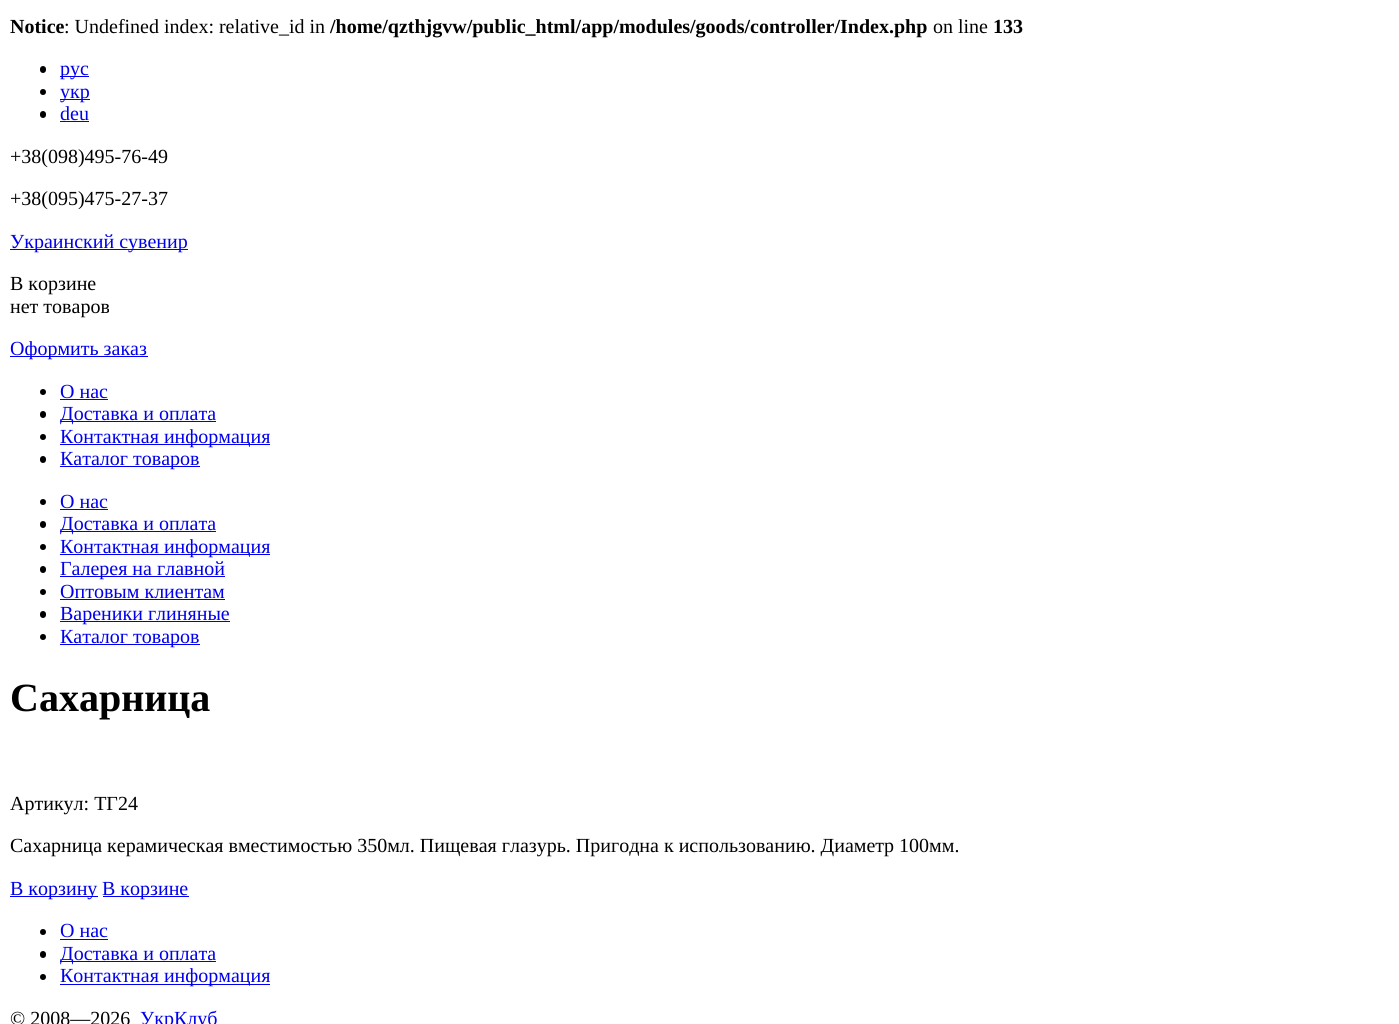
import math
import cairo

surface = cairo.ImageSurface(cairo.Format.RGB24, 1399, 1024)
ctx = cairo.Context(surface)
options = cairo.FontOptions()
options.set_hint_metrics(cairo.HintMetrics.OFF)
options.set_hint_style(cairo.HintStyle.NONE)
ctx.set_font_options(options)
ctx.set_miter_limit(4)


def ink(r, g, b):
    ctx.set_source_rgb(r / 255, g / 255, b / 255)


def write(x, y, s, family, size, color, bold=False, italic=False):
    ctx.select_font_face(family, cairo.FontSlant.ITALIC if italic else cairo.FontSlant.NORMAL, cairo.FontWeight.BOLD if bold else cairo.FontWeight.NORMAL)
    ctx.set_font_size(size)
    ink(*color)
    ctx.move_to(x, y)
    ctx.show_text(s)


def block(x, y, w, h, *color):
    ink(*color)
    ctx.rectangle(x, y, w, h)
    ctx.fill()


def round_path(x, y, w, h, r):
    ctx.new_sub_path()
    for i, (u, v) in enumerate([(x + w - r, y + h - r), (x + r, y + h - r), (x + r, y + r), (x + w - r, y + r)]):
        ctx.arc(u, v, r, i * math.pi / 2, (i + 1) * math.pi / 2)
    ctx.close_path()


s1 = dict(family="Liberation Serif", size=20, color=(0, 0, 0), bold=True)
s2 = dict(family="Liberation Serif", size=20, color=(0, 0, 0))
s3 = dict(family="Liberation Serif", size=20, color=(0, 0, 238))
s4 = dict(family="Liberation Serif", size=40, color=(0, 0, 0), bold=True)

ink(255, 255, 255)
ctx.paint()
write(10, 33, "Notice", **s1)
write(64, 33, ": Undefined index: relative_id in", **s2)
write(330, 33, "/home/qzthjgvw/public_html/app/modules/goods/controller/Index.php", **s1)
write(933, 33, "on line", **s2)
write(993, 33, "133", **s1)
round_path(40, 66, 6, 7, 3)
ctx.fill()
block(60, 76, 29, 1, 0, 0, 238)
write(60, 75, "рус", **s3)
ink(0, 0, 0)
ctx.new_path()
ctx.arc(43, 92, 3, 0, 2 * math.pi)
ctx.fill()
block(60, 99, 30, 1, 0, 0, 238)
write(60, 98, "укр", **s3)
ink(0, 0, 0)
round_path(40, 111, 6, 7, 3)
ctx.fill()
write(60, 120, "deu", **s3)
block(60, 121, 29, 1, 0, 0, 238)
write(10, 163, "+38(098)495-76-49", **s2)
write(10, 205, "+38(095)475-27-37", **s2)
block(10, 249, 178, 1, 0, 0, 238)
write(10, 248, "Украинский сувенир", **s3)
write(10, 290, "В корзине", **s2)
write(10, 313, "нет товаров", **s2)
block(10, 356, 138, 1, 0, 0, 238)
write(10, 355, "Оформить заказ", **s3)
ink(0, 0, 0)
ctx.new_path()
ctx.arc(43, 392, 3, 0, 2 * math.pi)
ctx.fill()
write(60, 398, "О нас", **s3)
block(60, 399, 48, 1, 0, 0, 238)
ink(0, 0, 0)
round_path(40, 411, 6, 7, 3)
ctx.fill()
block(60, 421, 156, 1, 0, 0, 238)
write(60, 420, "Доставка и оплата", **s3)
ink(0, 0, 0)
ctx.new_path()
ctx.arc(43, 437, 3, 0, 2 * math.pi)
ctx.fill()
block(60, 444, 210, 1, 0, 0, 238)
write(60, 443, "Контактная информация", **s3)
ink(0, 0, 0)
round_path(40, 456, 6, 7, 3)
ctx.fill()
block(60, 466, 140, 1, 0, 0, 238)
write(60, 465, "Каталог товаров", **s3)
ink(0, 0, 0)
ctx.new_path()
ctx.arc(43, 502, 3, 0, 2 * math.pi)
ctx.fill()
write(60, 508, "О нас", **s3)
block(60, 509, 48, 1, 0, 0, 238)
ink(0, 0, 0)
round_path(40, 521, 6, 7, 3)
ctx.fill()
block(60, 531, 156, 1, 0, 0, 238)
write(60, 530, "Доставка и оплата", **s3)
ink(0, 0, 0)
ctx.new_path()
ctx.arc(43, 547, 3, 0, 2 * math.pi)
ctx.fill()
block(60, 554, 210, 1, 0, 0, 238)
write(60, 553, "Контактная информация", **s3)
ink(0, 0, 0)
round_path(40, 566, 6, 7, 3)
ctx.fill()
block(60, 576, 165, 1, 0, 0, 238)
write(60, 575, "Галерея на главной", **s3)
ink(0, 0, 0)
ctx.new_path()
ctx.arc(43, 592, 3, 0, 2 * math.pi)
ctx.fill()
write(60, 598, "Оптовым клиентам", **s3)
block(60, 599, 165, 1, 0, 0, 238)
ink(0, 0, 0)
round_path(40, 611, 6, 7, 3)
ctx.fill()
block(60, 621, 170, 1, 0, 0, 238)
write(60, 620, "Вареники глиняные", **s3)
ink(0, 0, 0)
ctx.new_path()
ctx.arc(43, 637, 3, 0, 2 * math.pi)
ctx.fill()
block(60, 644, 140, 1, 0, 0, 238)
write(60, 643, "Каталог товаров", **s3)
write(10, 711, "Сахарница", **s4)
write(10, 810, "Артикул: ТГ24", **s2)
write(10, 852, "Сахарница керамическая вместимостью 350мл. Пищевая глазурь. Пригодна к использованию. Диаметр 100мм.", **s2)
block(10, 896, 88, 1, 0, 0, 238)
write(10, 895, "В корзину", **s3)
block(103, 896, 86, 1, 0, 0, 238)
write(102, 895, "В корзине", **s3)
ink(0, 0, 0)
ctx.new_path()
ctx.arc(43, 932, 3, 0, 2 * math.pi)
ctx.fill()
write(60, 937, "О нас", **s3)
block(60, 939, 48, 1, 0, 0, 238)
ink(0, 0, 0)
round_path(40, 951, 6, 7, 3)
ctx.fill()
block(60, 961, 156, 1, 0, 0, 238)
write(60, 960, "Доставка и оплата", **s3)
ink(0, 0, 0)
ctx.new_path()
ctx.arc(43, 977, 3, 0, 2 * math.pi)
ctx.fill()
block(60, 984, 210, 1, 0, 0, 238)
write(60, 982, "Контактная информация", **s3)
write(10, 1025, "© 2008—2026", **s2)
write(140, 1025, "УкрКлуб", **s3)
surface.write_to_png("screenshot.png")
